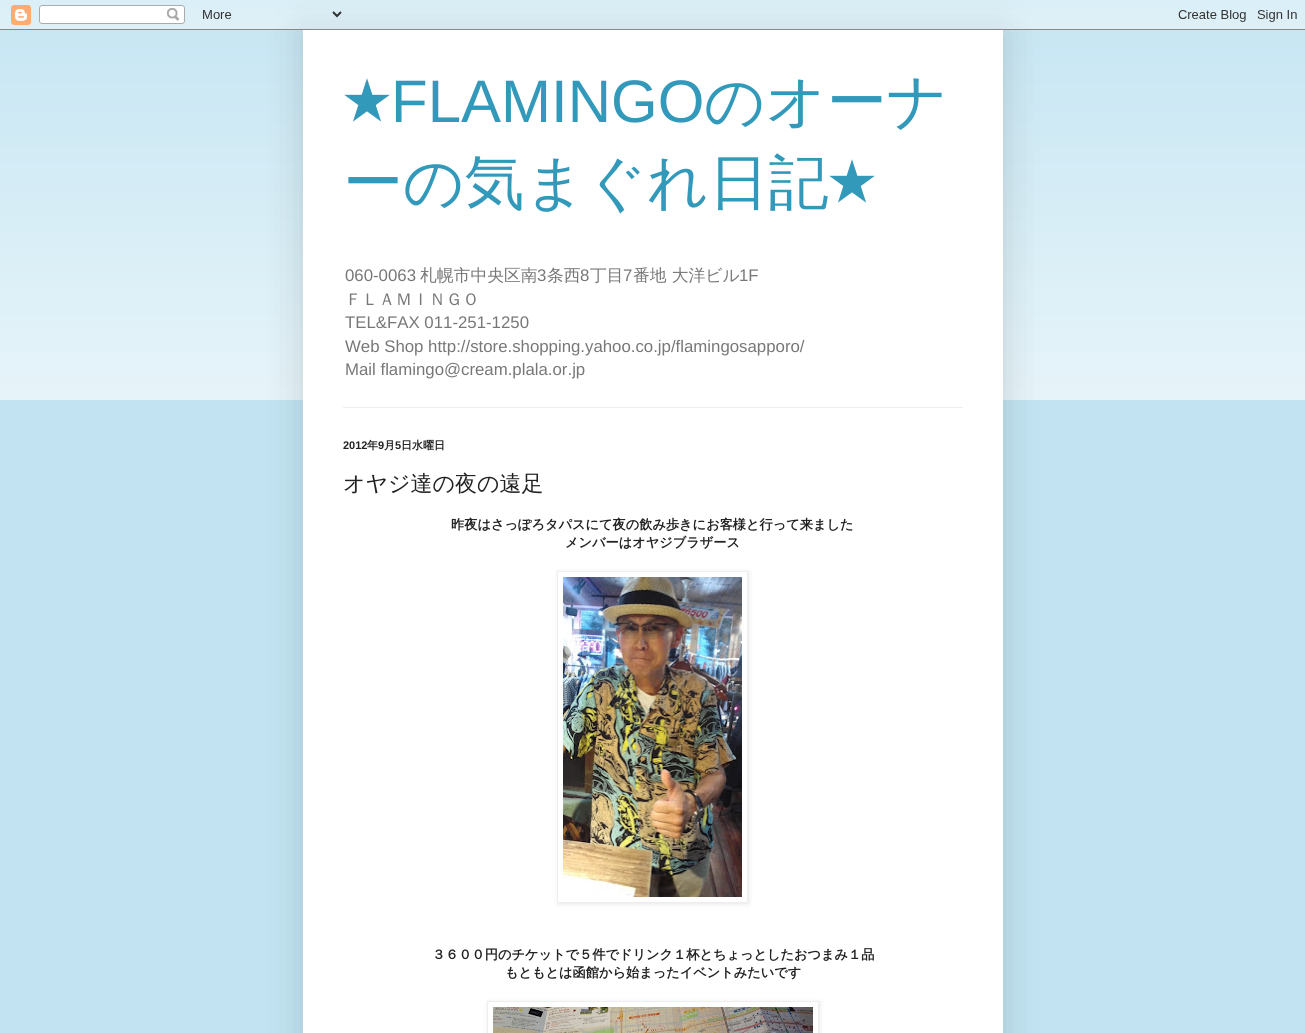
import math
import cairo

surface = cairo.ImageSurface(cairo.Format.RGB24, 1305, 1033)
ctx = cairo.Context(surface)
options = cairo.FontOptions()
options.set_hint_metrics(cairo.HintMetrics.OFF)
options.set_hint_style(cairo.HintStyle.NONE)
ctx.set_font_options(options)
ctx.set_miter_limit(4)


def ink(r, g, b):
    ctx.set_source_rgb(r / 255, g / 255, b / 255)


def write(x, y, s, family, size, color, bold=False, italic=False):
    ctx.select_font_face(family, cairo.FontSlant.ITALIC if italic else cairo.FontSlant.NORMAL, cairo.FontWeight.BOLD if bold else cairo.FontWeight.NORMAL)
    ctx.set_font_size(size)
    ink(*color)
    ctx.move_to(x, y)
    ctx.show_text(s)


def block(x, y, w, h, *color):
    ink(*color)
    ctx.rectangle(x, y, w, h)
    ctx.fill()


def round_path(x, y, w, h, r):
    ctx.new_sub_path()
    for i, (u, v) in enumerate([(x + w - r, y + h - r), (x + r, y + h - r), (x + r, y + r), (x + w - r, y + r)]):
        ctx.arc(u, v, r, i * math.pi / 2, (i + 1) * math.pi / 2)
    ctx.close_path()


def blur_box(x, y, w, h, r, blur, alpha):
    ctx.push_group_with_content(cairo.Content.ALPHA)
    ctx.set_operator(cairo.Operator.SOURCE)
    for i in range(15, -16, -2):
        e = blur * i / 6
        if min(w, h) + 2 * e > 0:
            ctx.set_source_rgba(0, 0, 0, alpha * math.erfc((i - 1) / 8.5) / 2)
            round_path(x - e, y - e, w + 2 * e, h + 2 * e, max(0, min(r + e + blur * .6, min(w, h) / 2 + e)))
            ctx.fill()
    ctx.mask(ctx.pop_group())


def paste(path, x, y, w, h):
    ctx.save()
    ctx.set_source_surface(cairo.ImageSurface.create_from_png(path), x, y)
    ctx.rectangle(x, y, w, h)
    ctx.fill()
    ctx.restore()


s1 = dict(family="FreeSans", size=60, color=(51, 153, 187))
s2 = dict(family="Liberation Sans", size=60, color=(51, 153, 187))
s3 = dict(family="WenQuanYi Zen Hei Medium", size=60, color=(51, 153, 187))
s4 = dict(family="Liberation Sans", size=16.8, color=(119, 119, 119))
s5 = dict(family="WenQuanYi Zen Hei Medium", size=16.8, color=(119, 119, 119))
s6 = dict(family="Liberation Sans", size=11, color=(34, 34, 34), bold=True)
s7 = dict(family="WenQuanYi Zen Hei", size=11, color=(34, 34, 34), bold=True)
s8 = dict(family="WenQuanYi Zen Hei Medium", size=22, color=(34, 34, 34))
s9 = dict(family="WenQuanYi Zen Hei", size=13.2, color=(34, 34, 34), bold=True)

ink(194, 228, 242)
ctx.paint()
paste("pic2.png", 0, 10, 1305, 390)
ink(0, 0, 0)
blur_box(303, 30, 700, 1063, 0, 20, 0.15)
paste("pic1.png", 0, 0, 1305, 30)
block(303, 30, 700, 1003, 255, 255, 255)
write(343, 122, "★", **s1)
write(391, 122, "FLAMINGO", **s2)
write(704, 122, "のオーナ", **s3)
write(343, 203, "ーの気まぐれ日記", **s3)
write(828, 203, "★", **s1)
write(345, 281, "060-0063", **s4)
write(420, 281, "札幌市中央区南", **s5)
write(537, 281, "3", **s4)
write(547, 281, "条西", **s5)
write(580, 281, "8", **s4)
write(590, 281, "丁目", **s5)
write(623, 281, "7", **s4)
write(633, 281, "番地 大洋ビル", **s5)
write(739, 281, "1F", **s4)
write(345, 305, "ＦＬＡＭＩＮＧＯ", **s5)
write(345, 328, "TEL&FAX 011-251-1250", **s4)
write(345, 352, "Web Shop http://store.shopping.yahoo.co.jp/flamingosapporo/", **s4)
write(345, 375, "Mail flamingo@cream.plala.or.jp", **s4)
block(343, 407, 620, 1, 238, 238, 238)
write(343, 449, "2012", **s6)
write(367, 449, "年", **s7)
write(378, 449, "9", **s6)
write(384, 449, "月", **s7)
write(395, 449, "5", **s6)
write(401, 449, "日水曜日", **s7)
write(343, 491, "オヤジ達の夜の遠足", **s8)
write(451, 529, "昨夜はさっぽろタパスにて夜の飲み歩きにお客様と行って来ました", **s9)
write(565, 547, "メンバーはオヤジブラザース", **s9)
ctx.save()
ctx.set_fill_rule(cairo.FillRule.EVEN_ODD)
ctx.new_path()
ctx.move_to(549, 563)
ctx.line_to(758, 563)
ctx.line_to(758, 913)
ctx.line_to(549, 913)
ctx.close_path()
ctx.move_to(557, 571)
ctx.line_to(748, 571)
ctx.line_to(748, 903)
ctx.line_to(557, 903)
ctx.close_path()
ctx.clip()
ink(0, 0, 0)
blur_box(558, 572, 191, 332, 0, 2.5, 0.1)
ctx.restore()
ctx.rectangle(557.5, 571.5, 190, 331)
ink(238, 238, 238)
ctx.set_line_width(1)
ctx.stroke()
paste("pic3.png", 563, 577, 179, 320)
write(432, 959, "３６００円のチケットで５件でドリンク１杯とちょっとしたおつまみ１品", **s9)
write(505, 977, "もともとは函館から始まったイベントみたいです", **s9)
ctx.save()
ctx.set_fill_rule(cairo.FillRule.EVEN_ODD)
ctx.new_path()
ctx.move_to(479, 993)
ctx.line_to(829, 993)
ctx.line_to(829, 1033)
ctx.line_to(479, 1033)
ctx.close_path()
ctx.move_to(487, 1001)
ctx.line_to(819, 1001)
ctx.line_to(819, 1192)
ctx.line_to(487, 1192)
ctx.close_path()
ctx.clip()
ink(0, 0, 0)
blur_box(488, 1002, 332, 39, 0, 2.5, 0.1)
ctx.restore()
ctx.rectangle(487.5, 1001.5, 331, 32)
ink(238, 238, 238)
ctx.stroke()
paste("pic4.png", 493, 1007, 320, 26)
surface.write_to_png("screenshot.png")
